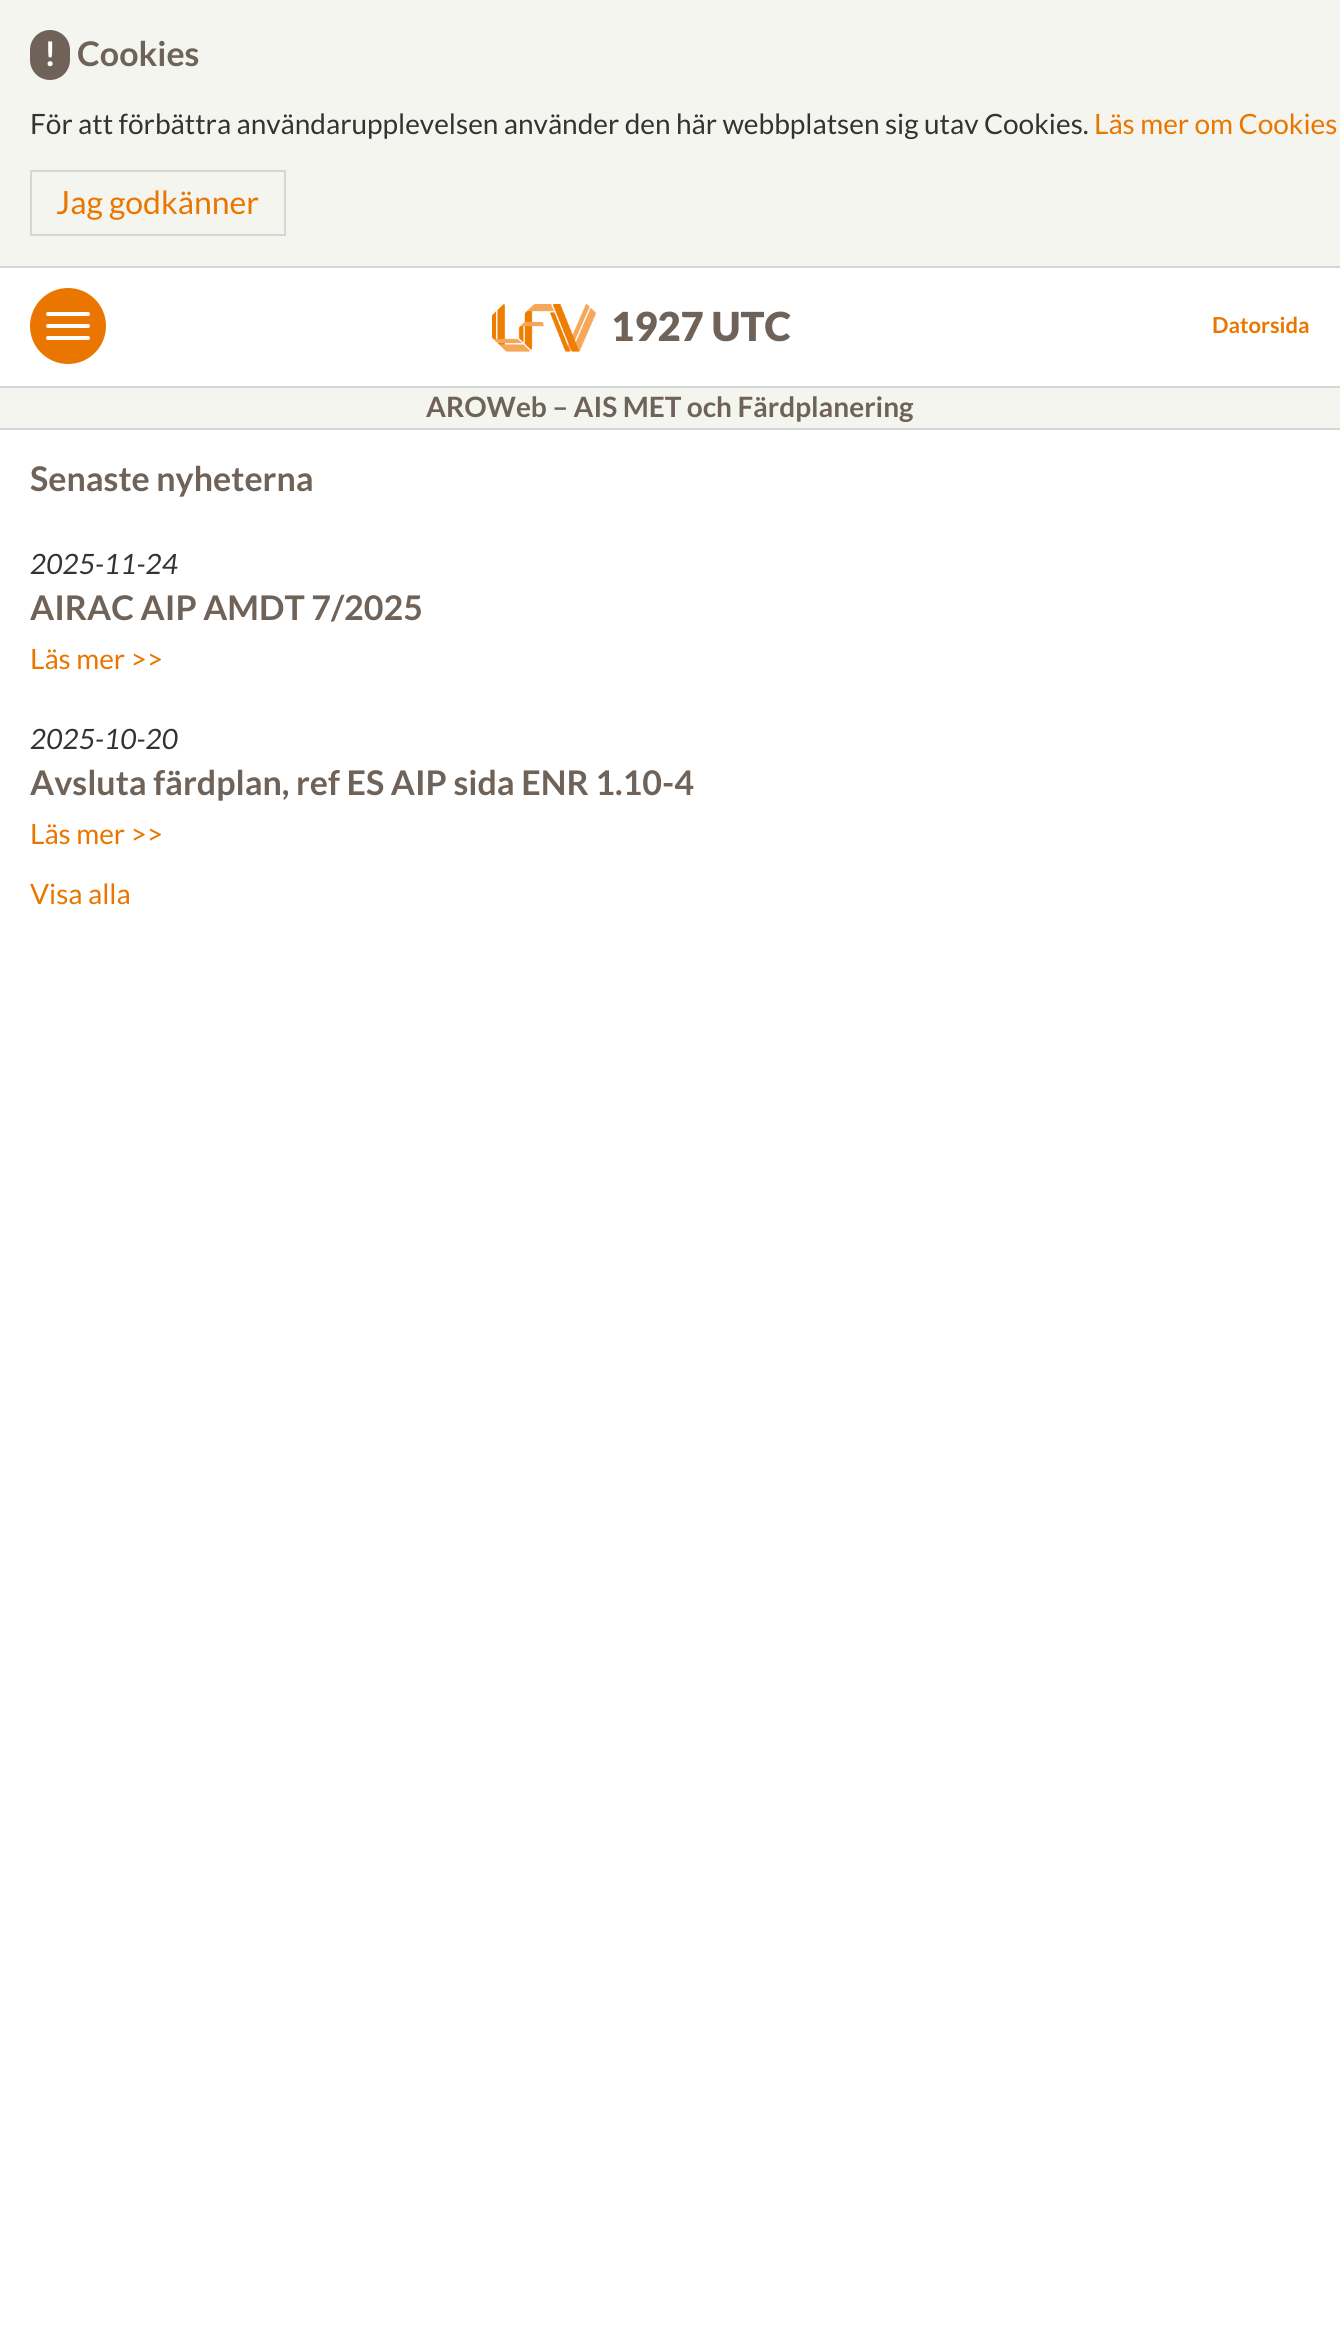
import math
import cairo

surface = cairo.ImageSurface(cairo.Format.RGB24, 1340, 2336)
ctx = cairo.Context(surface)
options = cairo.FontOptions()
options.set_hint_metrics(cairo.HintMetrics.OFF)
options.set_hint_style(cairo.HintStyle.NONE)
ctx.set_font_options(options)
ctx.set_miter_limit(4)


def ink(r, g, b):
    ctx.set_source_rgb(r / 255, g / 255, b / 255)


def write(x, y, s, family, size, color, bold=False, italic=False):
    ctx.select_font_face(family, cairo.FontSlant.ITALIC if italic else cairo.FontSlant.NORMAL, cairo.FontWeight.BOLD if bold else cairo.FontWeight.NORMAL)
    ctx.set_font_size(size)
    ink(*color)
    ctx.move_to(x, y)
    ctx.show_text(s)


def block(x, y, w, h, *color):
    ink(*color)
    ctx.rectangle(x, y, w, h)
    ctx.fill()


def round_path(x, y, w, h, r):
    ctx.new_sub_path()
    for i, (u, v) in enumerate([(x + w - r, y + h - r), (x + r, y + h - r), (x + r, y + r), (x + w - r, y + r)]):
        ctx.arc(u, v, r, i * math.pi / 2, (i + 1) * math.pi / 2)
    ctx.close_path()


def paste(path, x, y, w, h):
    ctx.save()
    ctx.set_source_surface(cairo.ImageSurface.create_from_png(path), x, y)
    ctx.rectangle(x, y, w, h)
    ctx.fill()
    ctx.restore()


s1 = dict(family="Lato", size=34, color=(255, 255, 255), bold=True)
s2 = dict(family="Lato", size=34, color=(110, 98, 89), bold=True)
s3 = dict(family="Lato", size=28, color=(51, 51, 51))
s4 = dict(family="Lato", size=28, color=(234, 118, 0))
s5 = dict(family="Lato", size=32, color=(234, 118, 0))
s6 = dict(family="Lato Black", size=40, color=(110, 98, 89))
s7 = dict(family="Lato", size=22, color=(234, 118, 0), bold=True)
s8 = dict(family="Lato", size=28, color=(110, 98, 89), bold=True)
s9 = dict(family="Lato", size=28, color=(51, 51, 51), italic=True)

ink(255, 255, 255)
ctx.paint()
block(0, 0, 1340, 266, 245, 245, 240)
block(0, 266, 1340, 2, 212, 214, 216)
ink(110, 98, 89)
round_path(30, 30, 40, 50, 20)
ctx.fill()
write(44, 66, "!", **s1)
write(77, 66, "Cookies", **s2)
write(30, 134, "För att förbättra användarupplevelsen använder den här webbplatsen sig utav Cookies.", **s3)
write(1094, 134, "Läs mer om Cookies", **s4)
ctx.rectangle(31, 171, 254, 64)
ink(212, 214, 216)
ctx.stroke()
write(56, 214, "Jag godkänner", **s5)
ctx.new_path()
ctx.arc(68, 326, 38, 0, 2 * math.pi)
ctx.fill()
ink(255, 255, 255)
round_path(46, 312, 44, 4, 2)
ctx.fill()
round_path(46, 324, 44, 4, 2)
ctx.fill()
round_path(46, 336, 44, 4, 2)
ctx.fill()
paste("pic1.png", 492, 304, 104, 48)
write(611, 341, "1927 UTC", **s6)
write(1212, 333, "Datorsida", **s7)
block(0, 388, 1340, 40, 245, 245, 240)
block(0, 386, 1340, 2, 212, 214, 216)
block(0, 428, 1340, 2, 212, 214, 216)
write(426, 417, "AROWeb – AIS MET och Färdplanering", **s8)
write(30, 491, "Senaste nyheterna", **s2)
write(30, 574, "2025-11-24", **s9)
write(30, 620, "AIRAC AIP AMDT 7/2025", **s2)
write(30, 669, "Läs mer >>", **s4)
write(30, 749, "2025-10-20", **s9)
write(30, 795, "Avsluta färdplan, ref ES AIP sida ENR 1.10-4", **s2)
write(30, 844, "Läs mer >>", **s4)
write(30, 904, "Visa alla", **s4)
surface.write_to_png("screenshot.png")
